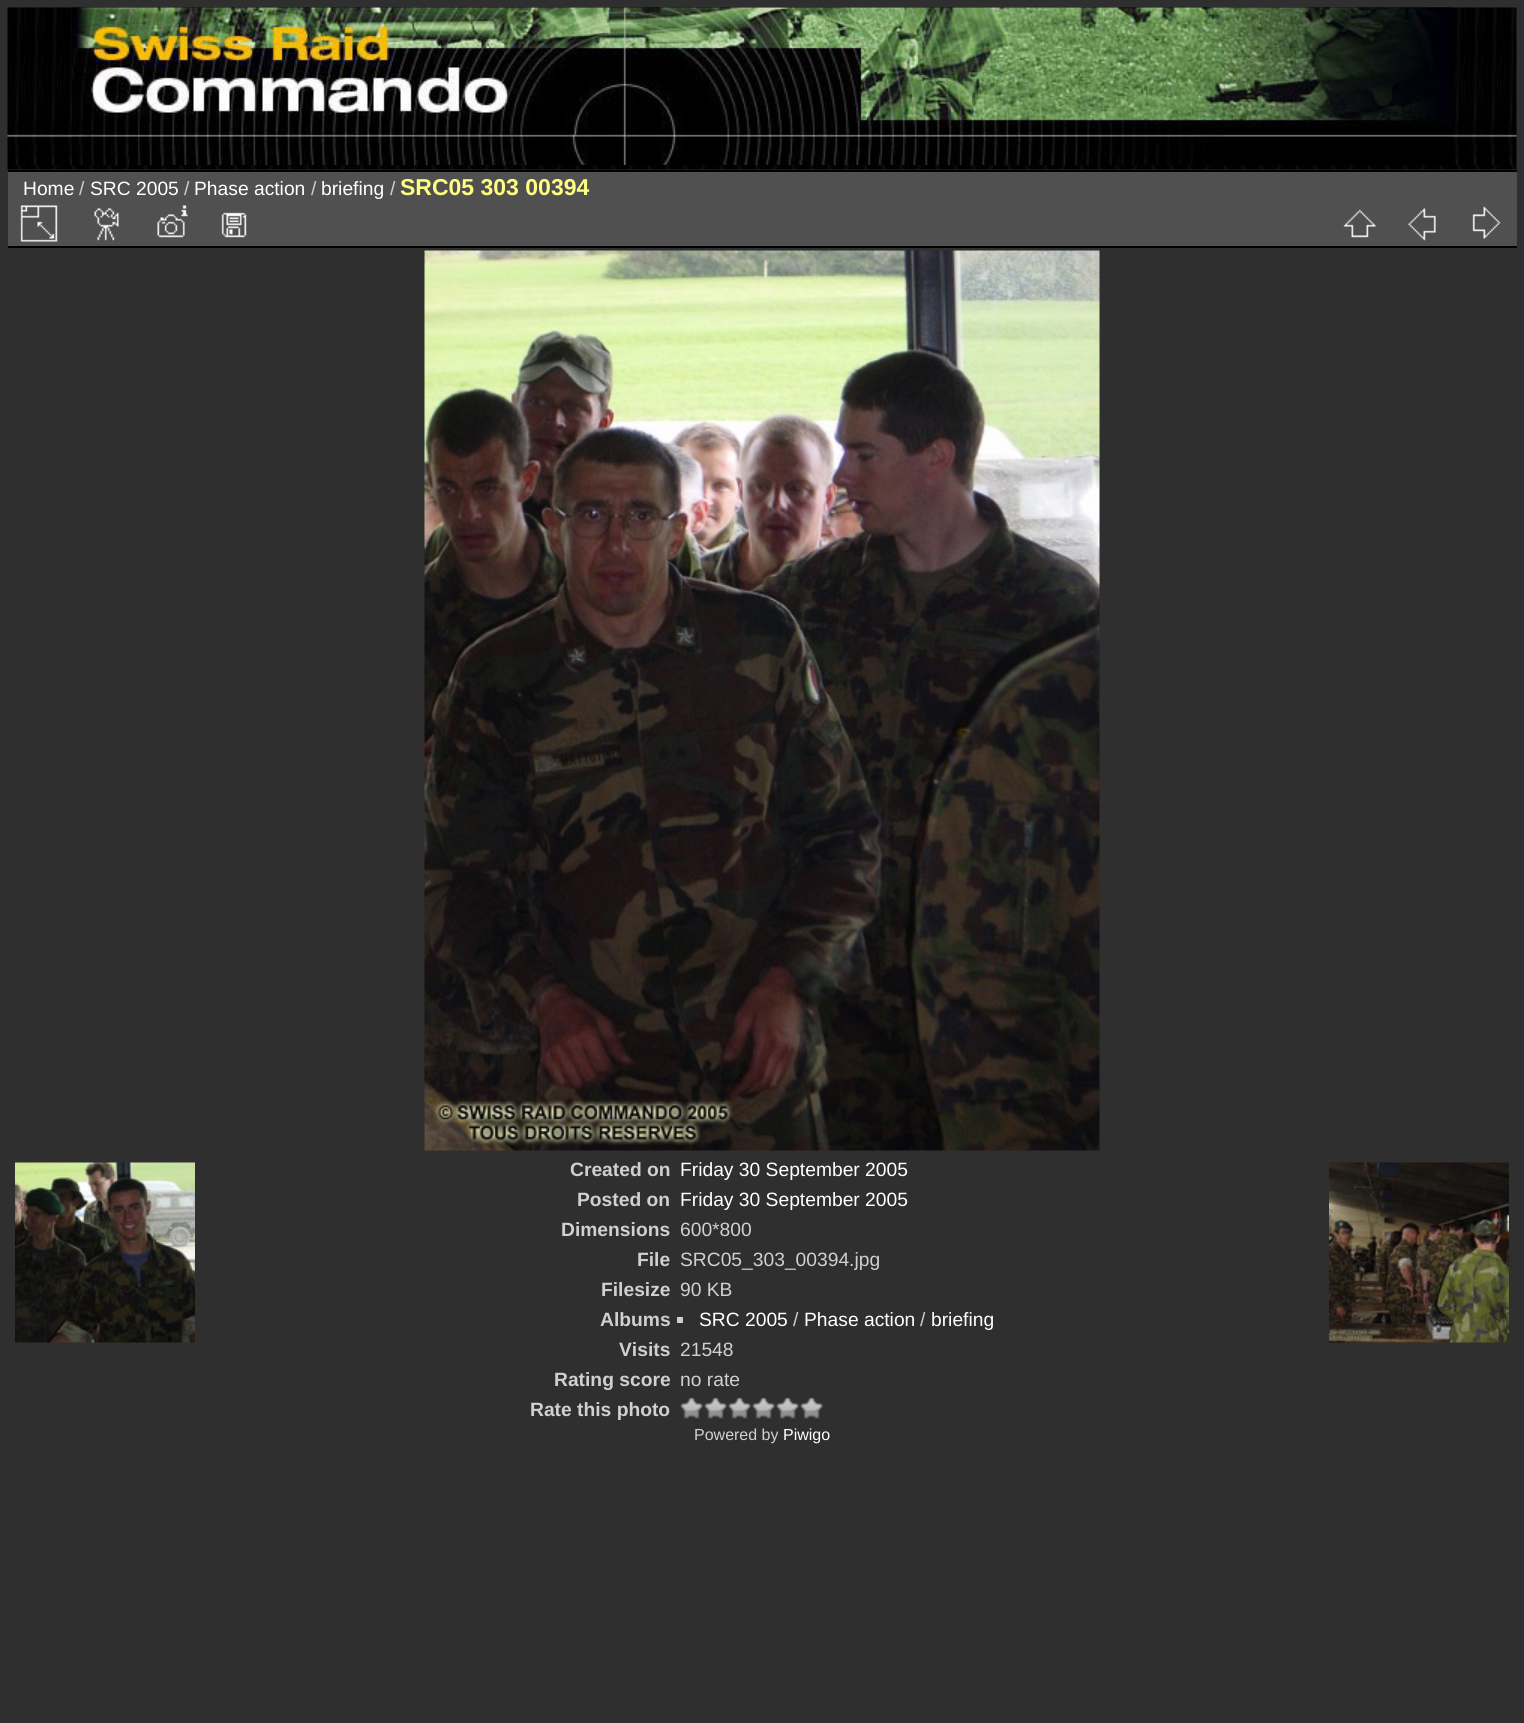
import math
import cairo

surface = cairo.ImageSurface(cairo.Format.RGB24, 1524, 1723)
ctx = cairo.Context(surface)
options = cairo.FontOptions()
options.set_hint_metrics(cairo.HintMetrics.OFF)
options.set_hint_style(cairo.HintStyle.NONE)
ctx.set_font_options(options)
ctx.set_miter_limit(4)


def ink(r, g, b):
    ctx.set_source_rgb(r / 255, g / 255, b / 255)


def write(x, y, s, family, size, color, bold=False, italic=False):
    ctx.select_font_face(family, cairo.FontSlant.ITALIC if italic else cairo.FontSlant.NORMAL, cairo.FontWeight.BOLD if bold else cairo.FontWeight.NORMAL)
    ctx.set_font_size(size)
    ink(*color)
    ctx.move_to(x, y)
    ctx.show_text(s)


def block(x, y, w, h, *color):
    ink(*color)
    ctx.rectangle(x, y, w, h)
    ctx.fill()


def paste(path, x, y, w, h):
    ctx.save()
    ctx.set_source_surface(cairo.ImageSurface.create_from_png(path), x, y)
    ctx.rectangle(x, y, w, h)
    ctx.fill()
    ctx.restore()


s1 = dict(family="Liberation Sans", size=19.25, color=(255, 255, 255))
s2 = dict(family="Liberation Sans", size=19.25, color=(208, 208, 208))
s3 = dict(family="Liberation Sans", size=23, color=(255, 255, 128), bold=True)
s4 = dict(family="Liberation Sans", size=19.25, color=(208, 208, 208), bold=True)
s5 = dict(family="Liberation Sans", size=16, color=(208, 208, 208))
s6 = dict(family="Liberation Sans", size=16, color=(255, 255, 255))

ink(47, 47, 47)
ctx.paint()
paste("pic1.png", 7, 7, 1510, 163)
paste("pic2.png", 72, 7, 1380, 158)
block(8, 172, 1509, 74, 80, 80, 80)
block(8, 246, 1509, 2, 0, 0, 0)
paste("pic3.png", 20, 205, 38, 37)
paste("pic4.png", 94, 208, 25, 33)
paste("pic5.png", 157, 205, 31, 33)
paste("pic6.png", 221, 212, 26, 26)
paste("pic7.png", 1343, 209, 33, 29)
paste("pic8.png", 1408, 208, 28, 33)
paste("pic9.png", 1472, 206, 29, 33)
block(8, 170, 1509, 2, 0, 0, 0)
write(23, 195, "Home", **s1)
write(79, 195, "/", **s2)
write(90, 195, "SRC 2005", **s1)
write(184, 195, "/", **s2)
write(194, 195, "Phase action", **s1)
write(311, 195, "/", **s2)
write(321, 195, "briefing", **s1)
write(390, 195, "/", **s2)
write(400, 195, "SRC05 303 00394", **s3)
paste("pic10.png", 424, 250, 676, 901)
paste("pic11.png", 15, 1162, 180, 181)
paste("pic12.png", 1329, 1162, 180, 181)
write(570, 1176, "Created on", **s4)
write(680, 1176, "Friday 30 September 2005", **s1)
write(577, 1206, "Posted on", **s4)
write(680, 1206, "Friday 30 September 2005", **s1)
write(561, 1236, "Dimensions", **s4)
write(680, 1236, "600*800", **s2)
write(637, 1266, "File", **s4)
write(680, 1266, "SRC05_303_00394.jpg", **s2)
write(601, 1296, "Filesize", **s4)
write(680, 1296, "90 KB", **s2)
write(600, 1326, "Albums", **s4)
block(677, 1317, 6, 6, 208, 208, 208)
write(699, 1326, "SRC 2005", **s1)
write(793, 1326, "/", **s2)
write(804, 1326, "Phase action", **s1)
write(920, 1326, "/", **s2)
write(931, 1326, "briefing", **s1)
write(619, 1356, "Visits", **s4)
write(680, 1356, "21548", **s2)
write(554, 1386, "Rating score", **s4)
write(680, 1386, "no rate", **s2)
write(530, 1416, "Rate this photo", **s4)
paste("pic13.png", 679, 1398, 25, 21)
paste("pic14.png", 703, 1398, 25, 21)
paste("pic14.png", 727, 1398, 25, 21)
paste("pic15.png", 751, 1398, 25, 21)
paste("pic16.png", 775, 1398, 25, 21)
paste("pic16.png", 799, 1398, 25, 21)
write(694, 1440, "Powered by", **s5)
write(783, 1440, "Piwigo", **s6)
surface.write_to_png("screenshot.png")
